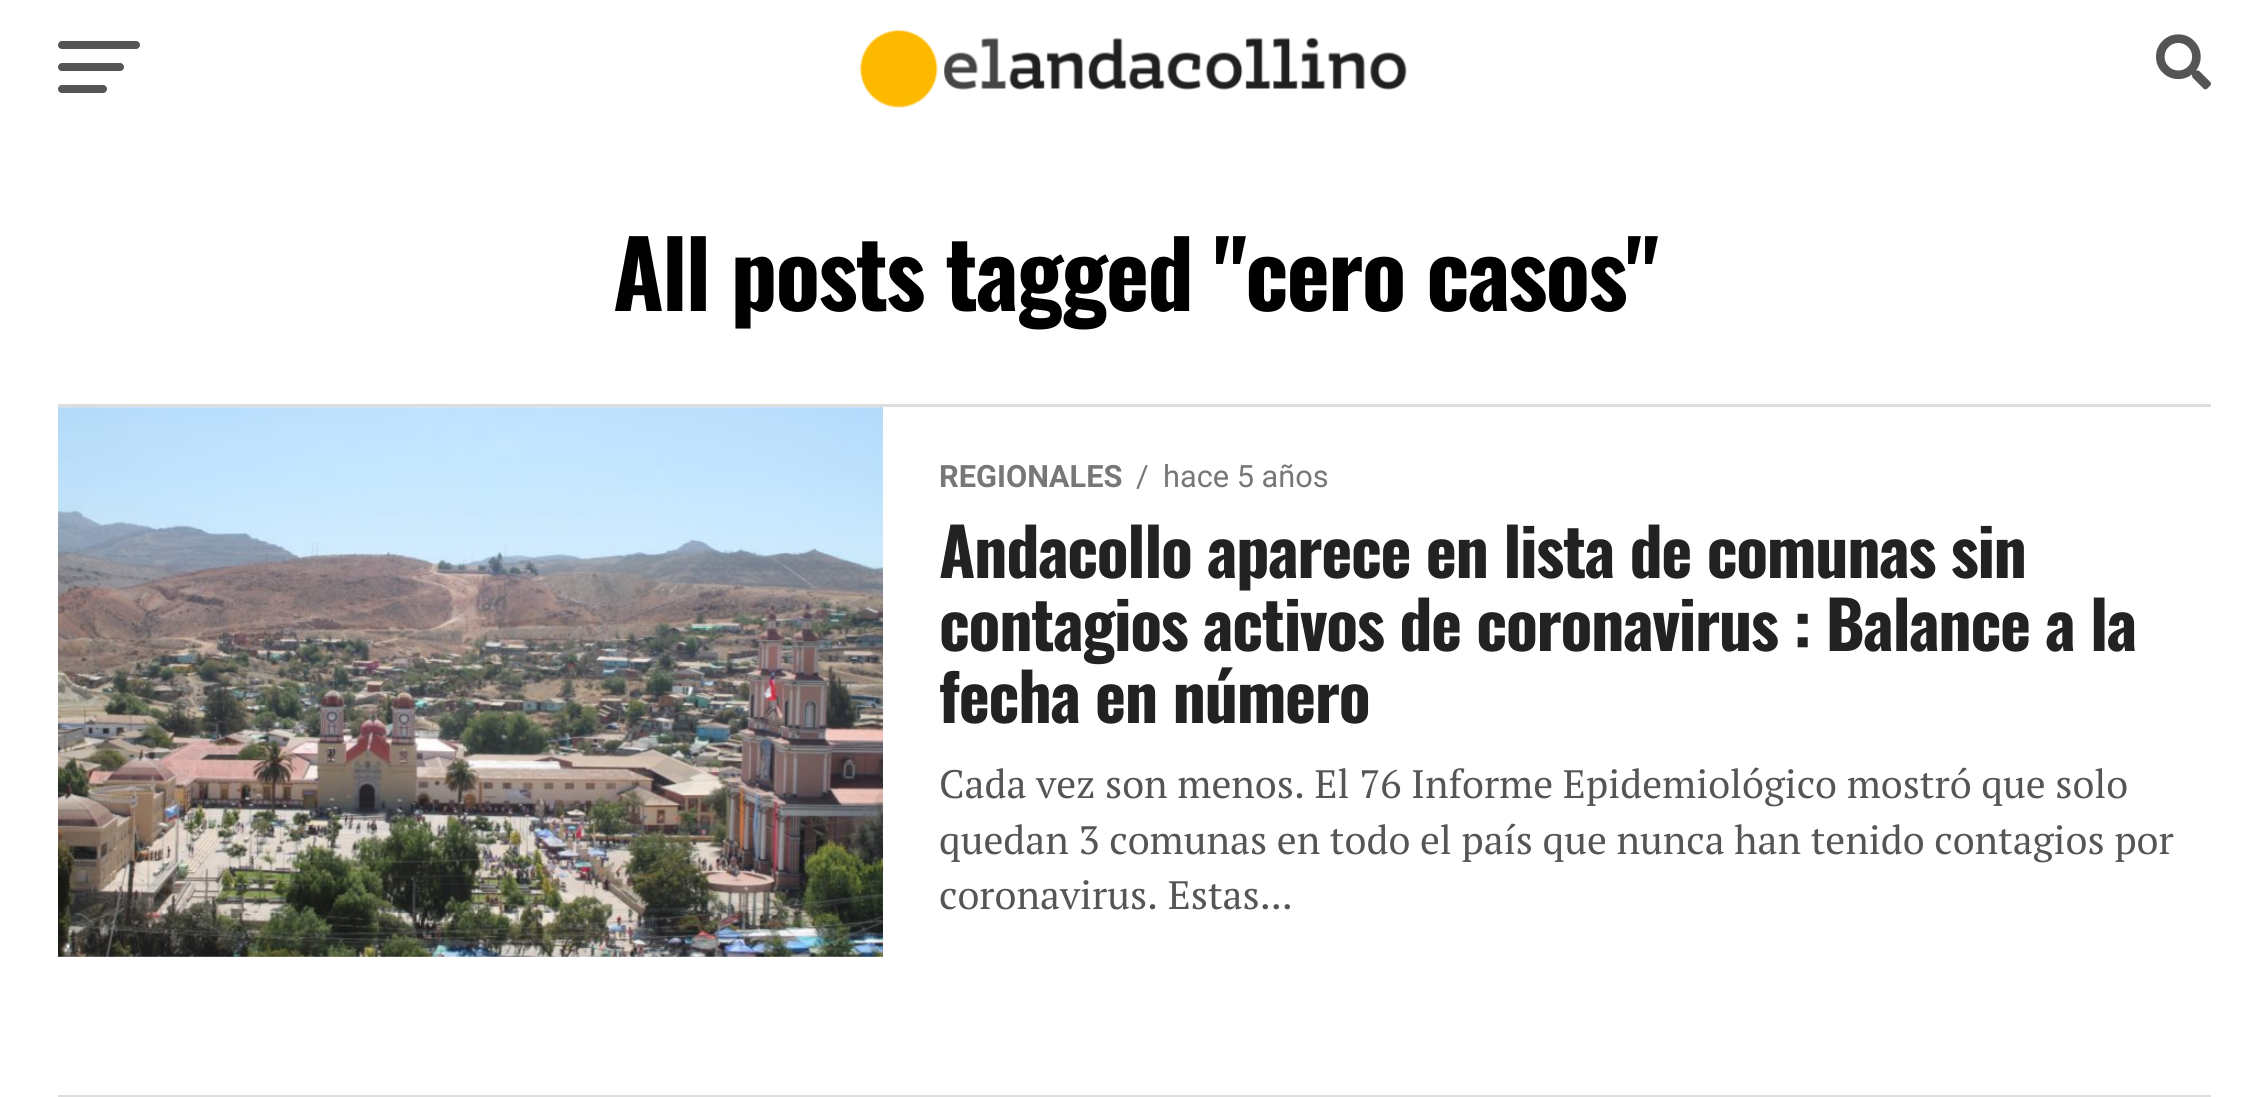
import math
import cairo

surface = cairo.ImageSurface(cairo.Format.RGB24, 2267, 1097)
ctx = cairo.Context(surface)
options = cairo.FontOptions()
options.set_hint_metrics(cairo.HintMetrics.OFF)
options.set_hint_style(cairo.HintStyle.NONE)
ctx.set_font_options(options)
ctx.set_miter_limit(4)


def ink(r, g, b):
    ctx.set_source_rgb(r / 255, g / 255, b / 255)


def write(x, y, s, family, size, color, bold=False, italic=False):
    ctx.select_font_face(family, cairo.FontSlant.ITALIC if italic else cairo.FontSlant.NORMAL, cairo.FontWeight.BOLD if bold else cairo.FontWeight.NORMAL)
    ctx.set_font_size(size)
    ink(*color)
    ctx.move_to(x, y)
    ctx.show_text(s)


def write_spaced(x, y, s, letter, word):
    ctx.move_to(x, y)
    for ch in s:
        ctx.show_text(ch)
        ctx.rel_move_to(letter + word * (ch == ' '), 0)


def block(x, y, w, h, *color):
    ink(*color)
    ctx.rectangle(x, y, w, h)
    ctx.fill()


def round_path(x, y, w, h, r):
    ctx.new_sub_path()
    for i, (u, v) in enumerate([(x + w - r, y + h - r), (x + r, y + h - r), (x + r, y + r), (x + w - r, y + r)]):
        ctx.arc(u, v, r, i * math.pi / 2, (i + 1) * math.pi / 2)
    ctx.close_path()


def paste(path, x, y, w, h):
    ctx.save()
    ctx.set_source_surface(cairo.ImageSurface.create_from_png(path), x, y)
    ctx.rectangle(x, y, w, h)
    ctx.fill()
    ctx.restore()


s1 = dict(family="Roboto", size=30.75, color=(119, 119, 119), bold=True)
s2 = dict(family="Roboto", size=30.75, color=(119, 119, 119))
s3 = dict(family="PT Serif", size=39.6, color=(85, 85, 85))

ink(255, 255, 255)
ctx.paint()
ink(85, 85, 85)
round_path(58, 41, 82, 8, 4)
ctx.fill()
round_path(58, 63, 66, 8, 4)
ctx.fill()
round_path(58, 85, 49, 8, 4)
ctx.fill()
paste("pic1.png", 859, 30, 548, 78)
paste("pic2.png", 2156, 34, 55, 56)
ctx.select_font_face("Oswald", cairo.FontSlant.NORMAL, cairo.FontWeight.BOLD)
ctx.set_font_size(92.4)
ink(0, 0, 0)
write_spaced(613, 311, "All posts tagged \"cero casos\"", -1.85, 0)
block(58, 404, 2153, 3, 221, 221, 221)
paste("pic3.png", 58, 407, 825, 550)
write(939, 487, "REGIONALES", **s1)
write(1136, 487, "/", **s2)
write(1163, 487, "hace 5 años", **s2)
ctx.select_font_face("Oswald", cairo.FontSlant.NORMAL, cairo.FontWeight.BOLD)
ctx.set_font_size(66)
ink(34, 34, 34)
write_spaced(939, 578, "Andacollo aparece en lista de comunas sin", -1.3, 0)
write_spaced(939, 651, "contagios activos de coronavirus : Balance a la", -1.3, 0)
write_spaced(939, 723, "fecha en número", -1.3, 0)
write(939, 798, "Cada vez son menos. El 76 Informe Epidemiológico mostró que solo", **s3)
write(939, 854, "quedan 3 comunas en todo el país que nunca han tenido contagios por", **s3)
write(939, 909, "coronavirus. Estas...", **s3)
block(58, 1095, 2153, 2, 221, 221, 221)
surface.write_to_png("screenshot.png")
